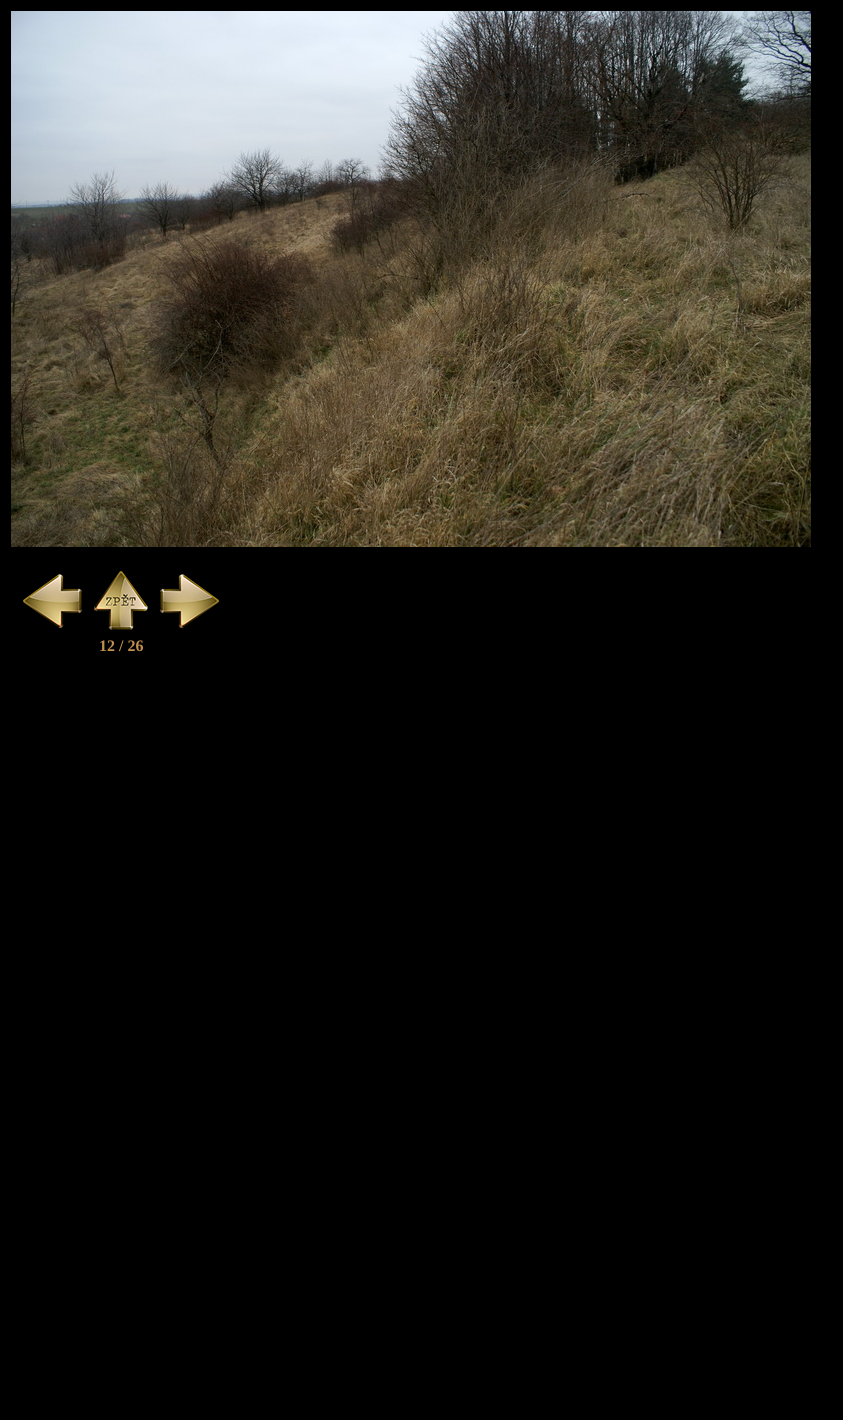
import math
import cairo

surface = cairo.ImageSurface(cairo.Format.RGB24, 843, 1420)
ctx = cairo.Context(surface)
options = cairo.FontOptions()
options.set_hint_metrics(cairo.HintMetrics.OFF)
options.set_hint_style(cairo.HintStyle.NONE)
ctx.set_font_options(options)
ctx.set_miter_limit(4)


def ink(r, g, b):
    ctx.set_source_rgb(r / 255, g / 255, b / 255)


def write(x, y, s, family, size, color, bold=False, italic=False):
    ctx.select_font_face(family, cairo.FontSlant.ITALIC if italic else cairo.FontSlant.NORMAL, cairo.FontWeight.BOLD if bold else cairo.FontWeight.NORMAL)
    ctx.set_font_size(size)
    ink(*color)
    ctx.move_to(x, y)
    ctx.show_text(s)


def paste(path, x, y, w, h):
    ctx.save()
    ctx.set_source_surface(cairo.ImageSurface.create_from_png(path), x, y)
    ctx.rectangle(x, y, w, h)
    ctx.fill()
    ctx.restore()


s1 = dict(family="Liberation Serif", size=16, color=(193, 143, 80), bold=True)

ink(0, 0, 0)
ctx.paint()
paste("pic1.png", 11, 11, 800, 536)
paste("pic2.png", 23, 574, 59, 54)
paste("pic3.png", 94, 571, 54, 59)
paste("pic4.png", 160, 574, 59, 54)
write(99, 651, "12 / 26", **s1)
surface.write_to_png("screenshot.png")
